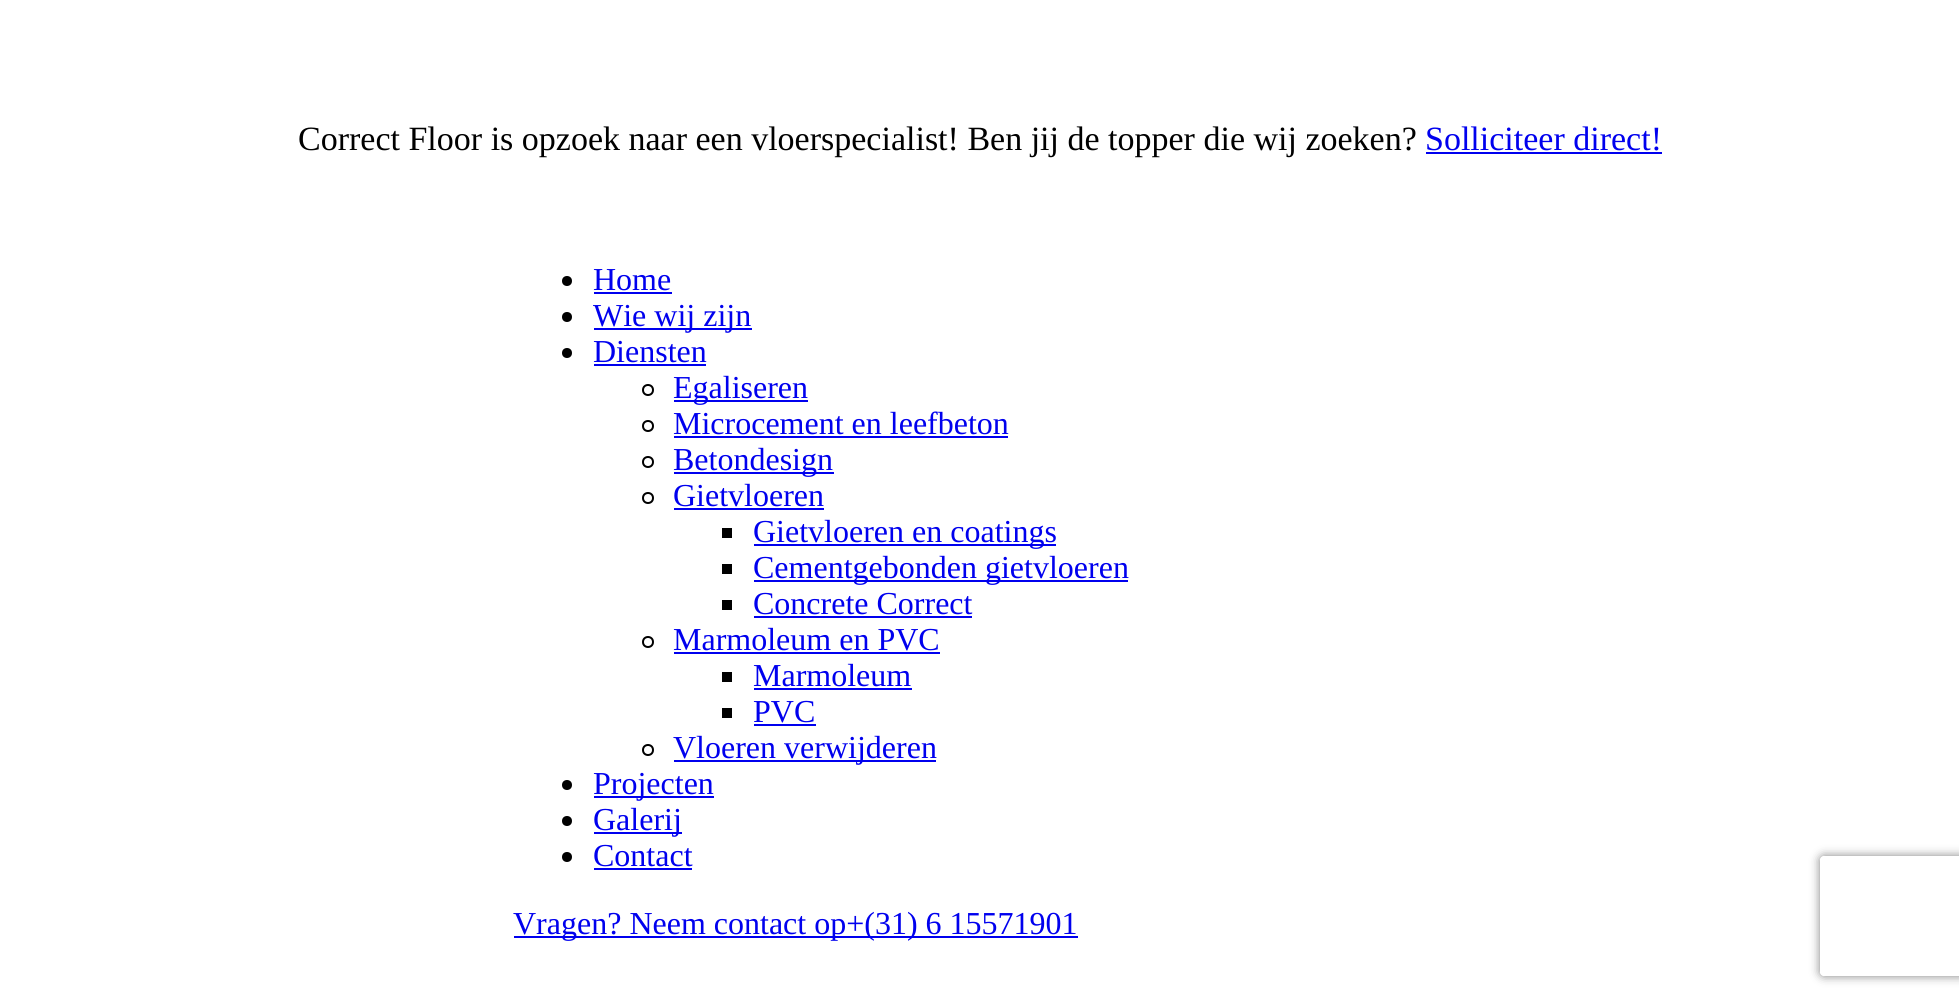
import math
import cairo

surface = cairo.ImageSurface(cairo.Format.RGB24, 1959, 1003)
ctx = cairo.Context(surface)
options = cairo.FontOptions()
options.set_hint_metrics(cairo.HintMetrics.OFF)
options.set_hint_style(cairo.HintStyle.NONE)
ctx.set_font_options(options)
ctx.set_miter_limit(4)


def ink(r, g, b):
    ctx.set_source_rgb(r / 255, g / 255, b / 255)


def write(x, y, s, family, size, color, bold=False, italic=False):
    ctx.select_font_face(family, cairo.FontSlant.ITALIC if italic else cairo.FontSlant.NORMAL, cairo.FontWeight.BOLD if bold else cairo.FontWeight.NORMAL)
    ctx.set_font_size(size)
    ink(*color)
    ctx.move_to(x, y)
    ctx.show_text(s)


def block(x, y, w, h, *color):
    ink(*color)
    ctx.rectangle(x, y, w, h)
    ctx.fill()


def round_path(x, y, w, h, r):
    ctx.new_sub_path()
    for i, (u, v) in enumerate([(x + w - r, y + h - r), (x + r, y + h - r), (x + r, y + r), (x + w - r, y + r)]):
        ctx.arc(u, v, r, i * math.pi / 2, (i + 1) * math.pi / 2)
    ctx.close_path()


def blur_box(x, y, w, h, r, blur, alpha):
    ctx.push_group_with_content(cairo.Content.ALPHA)
    ctx.set_operator(cairo.Operator.SOURCE)
    for i in range(15, -16, -2):
        e = blur * i / 6
        if min(w, h) + 2 * e > 0:
            ctx.set_source_rgba(0, 0, 0, alpha * math.erfc((i - 1) / 8.5) / 2)
            round_path(x - e, y - e, w + 2 * e, h + 2 * e, max(0, min(r + e + blur * .6, min(w, h) / 2 + e)))
            ctx.fill()
    ctx.mask(ctx.pop_group())


s1 = dict(family="Liberation Serif", size=34, color=(0, 0, 0))
s2 = dict(family="Liberation Serif", size=34, color=(0, 0, 238))
s3 = dict(family="Liberation Serif", size=32, color=(0, 0, 238))

ink(255, 255, 255)
ctx.paint()
write(298, 150, "Correct Floor is opzoek naar een vloerspecialist! Ben jij de topper die wij zoeken?", **s1)
write(1425, 150, "Solliciteer direct!", **s2)
block(1426, 152, 236, 2, 0, 0, 238)
ink(0, 0, 0)
ctx.new_path()
ctx.arc(567, 281, 5, 0, 2 * math.pi)
ctx.fill()
write(593, 290, "Home", **s3)
block(594, 292, 78, 2, 0, 0, 238)
ink(0, 0, 0)
ctx.new_path()
ctx.arc(567, 317, 5, 0, 2 * math.pi)
ctx.fill()
block(594, 328, 158, 2, 0, 0, 238)
write(593, 326, "Wie wij zijn", **s3)
ink(0, 0, 0)
ctx.new_path()
ctx.arc(567, 353, 5, 0, 2 * math.pi)
ctx.fill()
write(593, 362, "Diensten", **s3)
block(594, 364, 112, 2, 0, 0, 238)
ctx.new_path()
ctx.arc(648, 390, 5, 0, 2 * math.pi)
ink(0, 0, 0)
ctx.stroke()
block(674, 400, 134, 2, 0, 0, 238)
write(673, 398, "Egaliseren", **s3)
ctx.new_path()
ctx.arc(648, 426, 5, 0, 2 * math.pi)
ink(0, 0, 0)
ctx.stroke()
write(673, 434, "Microcement en leefbeton", **s3)
block(674, 436, 334, 2, 0, 0, 238)
ctx.new_path()
ctx.arc(648, 462, 5, 0, 2 * math.pi)
ink(0, 0, 0)
ctx.stroke()
block(674, 472, 160, 2, 0, 0, 238)
write(673, 470, "Betondesign", **s3)
ctx.new_path()
ctx.arc(648, 498, 5, 0, 2 * math.pi)
ink(0, 0, 0)
ctx.stroke()
write(673, 506, "Gietvloeren", **s3)
block(674, 508, 150, 2, 0, 0, 238)
block(722, 528, 10, 10, 0, 0, 0)
block(754, 544, 302, 2, 0, 0, 238)
write(753, 542, "Gietvloeren en coatings", **s3)
block(722, 564, 10, 10, 0, 0, 0)
block(754, 580, 374, 2, 0, 0, 238)
write(753, 578, "Cementgebonden gietvloeren", **s3)
block(722, 600, 10, 10, 0, 0, 0)
write(753, 614, "Concrete Correct", **s3)
block(754, 616, 218, 2, 0, 0, 238)
ctx.new_path()
ctx.arc(648, 642, 5, 0, 2 * math.pi)
ink(0, 0, 0)
ctx.stroke()
write(673, 650, "Marmoleum en PVC", **s3)
block(674, 652, 266, 2, 0, 0, 238)
block(722, 672, 10, 10, 0, 0, 0)
write(753, 686, "Marmoleum", **s3)
block(754, 688, 158, 2, 0, 0, 238)
block(722, 708, 10, 10, 0, 0, 0)
write(753, 722, "PVC", **s3)
block(754, 724, 62, 2, 0, 0, 238)
ctx.new_path()
ctx.arc(648, 750, 5, 0, 2 * math.pi)
ink(0, 0, 0)
ctx.stroke()
block(674, 760, 262, 2, 0, 0, 238)
write(673, 758, "Vloeren verwijderen", **s3)
ink(0, 0, 0)
ctx.new_path()
ctx.arc(567, 785, 5, 0, 2 * math.pi)
ctx.fill()
block(594, 796, 120, 2, 0, 0, 238)
write(593, 794, "Projecten", **s3)
ink(0, 0, 0)
ctx.new_path()
ctx.arc(567, 821, 5, 0, 2 * math.pi)
ctx.fill()
block(594, 832, 88, 2, 0, 0, 238)
write(593, 830, "Galerij", **s3)
ink(0, 0, 0)
ctx.new_path()
ctx.arc(567, 857, 5, 0, 2 * math.pi)
ctx.fill()
write(593, 866, "Contact", **s3)
block(594, 868, 98, 2, 0, 0, 238)
block(514, 936, 564, 2, 0, 0, 238)
write(513, 934, "Vragen? Neem contact op+(31) 6 15571901", **s3)
ctx.save()
ctx.set_fill_rule(cairo.FillRule.EVEN_ODD)
ctx.new_path()
ctx.move_to(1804, 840)
ctx.line_to(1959, 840)
ctx.line_to(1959, 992)
ctx.line_to(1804, 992)
ctx.close_path()
ctx.move_to(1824, 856)
ctx.line_to(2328, 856)
ctx.curve_to(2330, 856, 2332, 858, 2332, 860)
ctx.line_to(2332, 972)
ctx.curve_to(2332, 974, 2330, 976, 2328, 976)
ctx.line_to(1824, 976)
ctx.curve_to(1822, 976, 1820, 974, 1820, 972)
ctx.line_to(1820, 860)
ctx.curve_to(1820, 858, 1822, 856, 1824, 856)
ctx.close_path()
ctx.clip()
ink(128, 128, 128)
blur_box(1820, 856, 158, 120, 4, 5, 1)
ctx.restore()
surface.write_to_png("screenshot.png")
